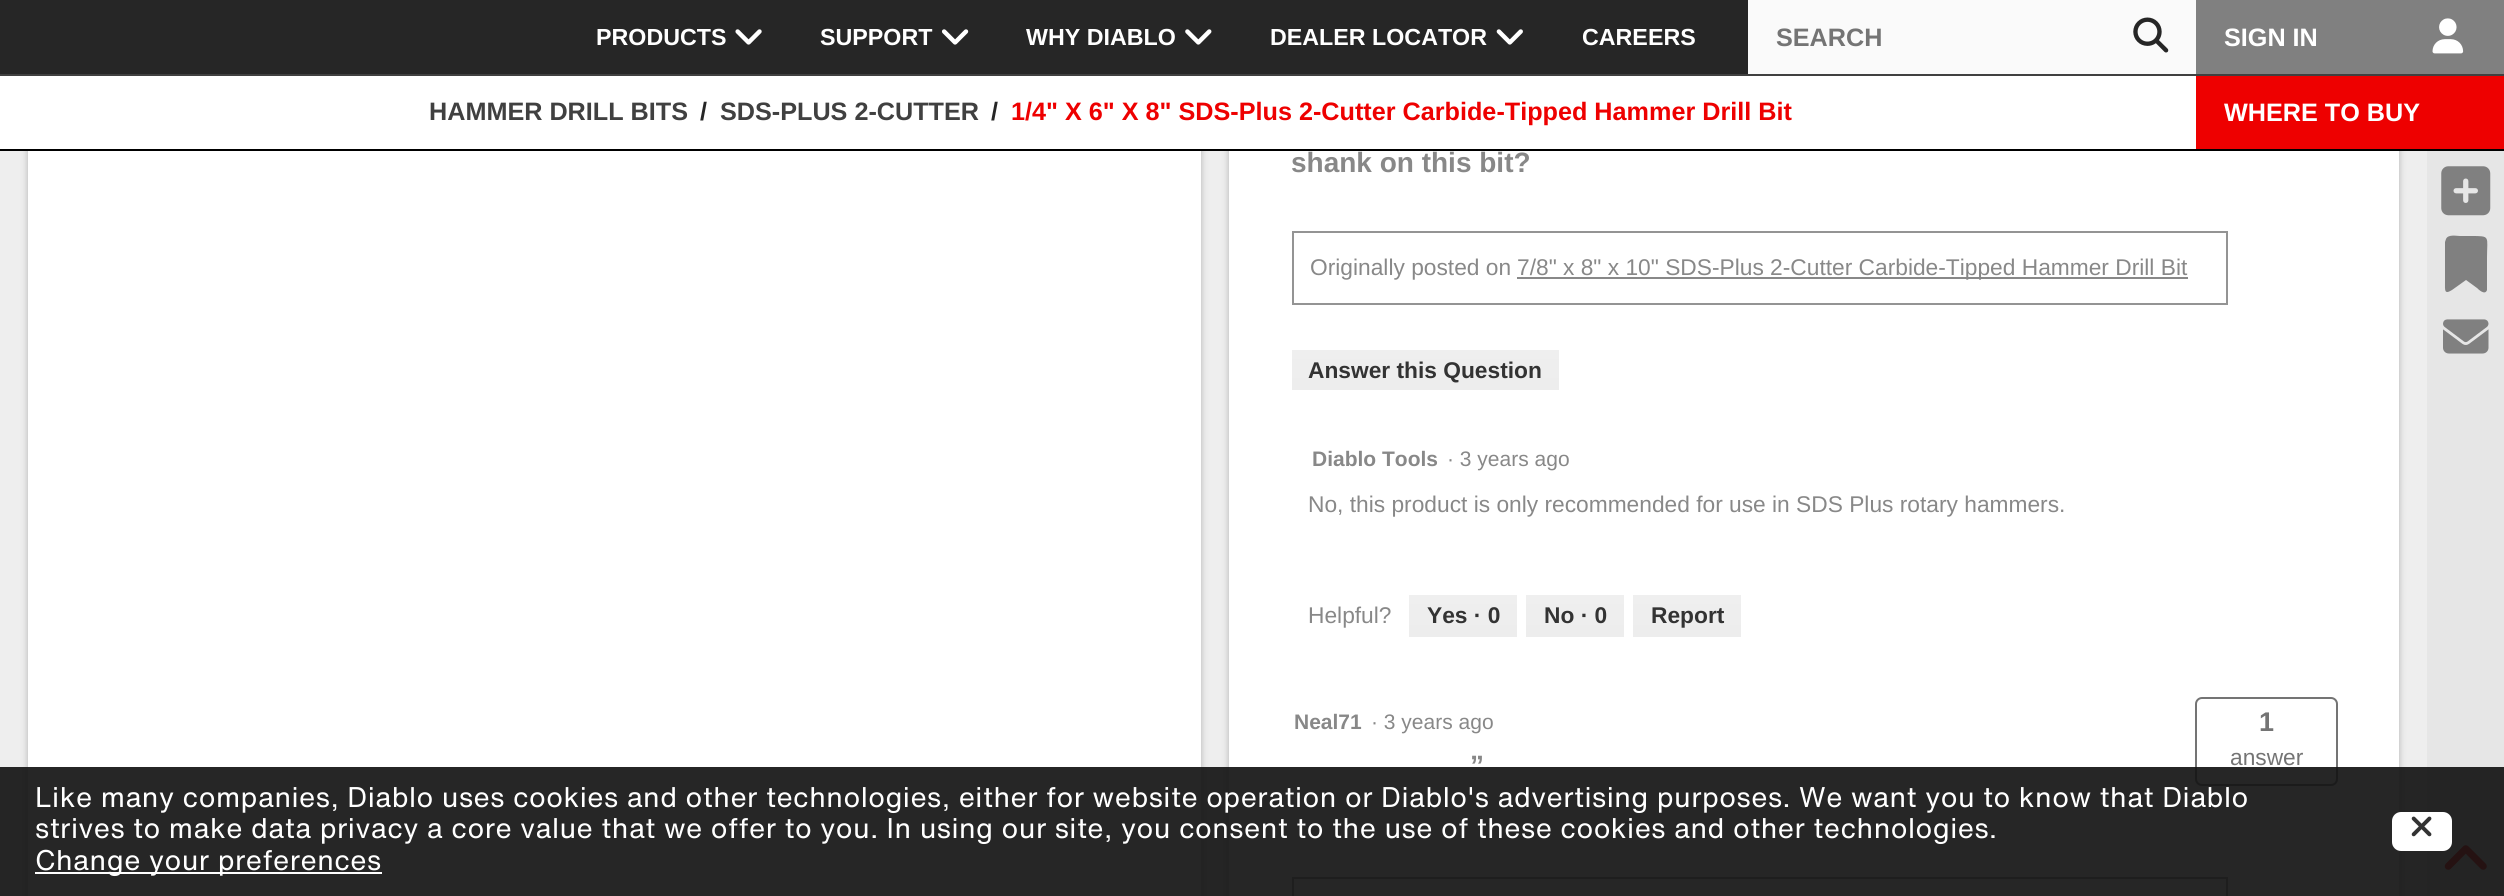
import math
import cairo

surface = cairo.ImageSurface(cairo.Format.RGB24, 2504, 896)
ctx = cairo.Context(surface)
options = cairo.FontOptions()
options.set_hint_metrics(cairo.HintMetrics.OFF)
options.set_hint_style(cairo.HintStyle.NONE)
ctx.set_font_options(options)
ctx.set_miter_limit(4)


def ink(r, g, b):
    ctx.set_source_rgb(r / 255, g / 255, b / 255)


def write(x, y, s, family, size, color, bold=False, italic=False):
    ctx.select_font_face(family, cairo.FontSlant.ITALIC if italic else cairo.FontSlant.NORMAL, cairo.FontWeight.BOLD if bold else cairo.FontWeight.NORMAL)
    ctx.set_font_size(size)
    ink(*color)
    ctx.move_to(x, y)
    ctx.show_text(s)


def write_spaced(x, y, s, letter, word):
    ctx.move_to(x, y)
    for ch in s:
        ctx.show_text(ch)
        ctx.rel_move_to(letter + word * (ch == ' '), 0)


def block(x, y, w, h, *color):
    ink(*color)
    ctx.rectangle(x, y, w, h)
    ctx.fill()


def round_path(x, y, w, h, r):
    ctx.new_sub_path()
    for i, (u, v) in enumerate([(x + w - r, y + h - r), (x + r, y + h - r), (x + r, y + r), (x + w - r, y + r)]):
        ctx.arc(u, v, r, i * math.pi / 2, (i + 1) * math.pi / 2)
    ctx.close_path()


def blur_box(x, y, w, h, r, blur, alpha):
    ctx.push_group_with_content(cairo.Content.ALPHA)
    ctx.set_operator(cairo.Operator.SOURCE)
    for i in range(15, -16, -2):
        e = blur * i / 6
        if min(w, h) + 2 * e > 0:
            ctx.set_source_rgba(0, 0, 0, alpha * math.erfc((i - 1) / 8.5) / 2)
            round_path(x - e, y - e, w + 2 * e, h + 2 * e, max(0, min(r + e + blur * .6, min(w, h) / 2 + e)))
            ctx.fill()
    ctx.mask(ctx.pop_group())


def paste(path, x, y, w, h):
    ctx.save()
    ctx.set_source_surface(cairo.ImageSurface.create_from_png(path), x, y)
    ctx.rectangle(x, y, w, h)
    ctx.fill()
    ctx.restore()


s1 = dict(family="Liberation Sans", size=23.25, color=(255, 255, 255), bold=True)
s2 = dict(family="Liberation Sans", size=25.2, color=(116, 116, 116), bold=True)
s3 = dict(family="Liberation Sans", size=25.2, color=(255, 255, 255), bold=True)
s4 = dict(family="Liberation Sans", size=25.2, color=(64, 64, 64), bold=True)
s5 = dict(family="Liberation Sans", size=25.2, color=(38, 38, 38), bold=True)
s6 = dict(family="Liberation Sans", size=25.2, color=(238, 0, 0), bold=True)
s7 = dict(family="Liberation Sans", size=28, color=(136, 136, 136), bold=True)
s8 = dict(family="Liberation Sans", size=22.75, color=(136, 136, 136))
s9 = dict(family="Liberation Sans", size=22.75, color=(51, 51, 51), bold=True)
s10 = dict(family="Liberation Sans", size=21, color=(136, 136, 136), bold=True)
s11 = dict(family="Liberation Sans", size=21, color=(136, 136, 136))
s12 = dict(family="Liberation Sans", size=27, color=(116, 116, 116), bold=True)
s13 = dict(family="Liberation Sans", size=22.75, color=(116, 116, 116))

ink(238, 238, 238)
ctx.paint()
ink(0, 0, 0)
blur_box(28, -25, 1173, 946, 14, 3.5, 0.25)
blur_box(1229, -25, 1170, 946, 14, 3.5, 0.25)
block(0, 0, 1748, 74, 38, 38, 38)
block(0, 74, 2504, 2, 64, 64, 64)
write(596, 45, "PRODUCTS", **s1)
paste("pic1.png", 735, 29, 27, 16)
write(820, 45, "SUPPORT", **s1)
paste("pic2.png", 941, 29, 28, 16)
write(1026, 45, "WHY DIABLO", **s1)
paste("pic3.png", 1185, 29, 27, 16)
write(1270, 45, "DEALER LOCATOR", **s1)
paste("pic4.png", 1496, 29, 27, 16)
write(1582, 45, "CAREERS", **s1)
block(1748, 0, 448, 74, 250, 250, 250)
write(1776, 46, "SEARCH", **s2)
paste("pic5.png", 2133, 17, 36, 36)
block(2196, 0, 308, 74, 128, 128, 128)
write(2224, 46, "SIGN IN", **s3)
paste("pic6.png", 2432, 18, 32, 36)
block(0, 76, 2196, 73, 255, 255, 255)
block(0, 149, 2504, 2, 0, 0, 0)
write(429, 120, "HAMMER DRILL BITS", **s4)
write(700, 120, "/", **s5)
write(720, 120, "SDS-PLUS 2-CUTTER", **s4)
write(991, 120, "/", **s5)
write(1011, 120, "1/4\" X 6\" X 8\" SDS-Plus 2-Cutter Carbide-Tipped Hammer Drill Bit", **s6)
block(2196, 76, 308, 73, 238, 0, 0)
write(2224, 121, "WHERE TO BUY", **s3)
block(28, 151, 1173, 745, 255, 255, 255)
block(1229, 151, 1170, 745, 255, 255, 255)
round_path(2196, 698, 141, 87, 6)
ink(116, 116, 116)
ctx.stroke()
ctx.rectangle(1293, 878, 934, 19)
ink(148, 148, 148)
ctx.stroke()
block(2427, 151, 77, 745, 230, 230, 230)
paste("pic10.png", 2444, 845, 43, 25)
ctx.set_source_rgba(0.078, 0.078, 0.078, 0.92)
ctx.rectangle(0, 767, 2504, 129)
ctx.fill()
ctx.select_font_face("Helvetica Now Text")
ctx.set_font_size(28)
ink(255, 255, 255)
write_spaced(35, 807, "Like many companies, Diablo uses cookies and other technologies, either for website operation or Diablo's advertising purposes. We want you to know that Diablo", 0.49, 0)
write_spaced(35, 838, "strives to make data privacy a core value that we offer to you. In using our site, you consent to the use of these cookies and other technologies.", 0.49, 0)
block(35, 872, 347, 2, 255, 255, 255)
write_spaced(35, 870, "Change your preferences", 0.49, 0)
round_path(2392, 812, 60, 39, 9)
ctx.fill()
paste("pic7.png", 2411, 816, 21, 21)
write(1291, 172, "shank on this bit?", **s7)
ctx.rectangle(1293, 232, 934, 72)
ink(148, 148, 148)
ctx.stroke()
write(1310, 275, "Originally posted on", **s8)
block(1517, 277, 671, 2, 136, 136, 136)
write(1517, 275, "7/8\" x 8\" x 10\" SDS-Plus 2-Cutter Carbide-Tipped Hammer Drill Bit", **s8)
gradient = cairo.LinearGradient(1425, 350, 1425, 390)
gradient.add_color_stop_rgba(0, 0.937, 0.937, 0.937, 1)
gradient.add_color_stop_rgba(1, 0.929, 0.929, 0.929, 1)
ctx.set_source(gradient)
ctx.rectangle(1292, 350, 267, 40)
ctx.fill()
write(1308, 378, "Answer this Question", **s9)
write(1312, 466, "Diablo Tools", **s10)
write(1447, 466, "· 3 years ago", **s11)
write(1308, 512, "No, this product is only recommended for use in SDS Plus rotary hammers.", **s8)
write(1308, 623, "Helpful?", **s8)
gradient = cairo.LinearGradient(1463, 595, 1463, 637)
gradient.add_color_stop_rgba(0, 0.937, 0.937, 0.937, 1)
gradient.add_color_stop_rgba(1, 0.929, 0.929, 0.929, 1)
ctx.set_source(gradient)
ctx.rectangle(1409, 595, 108, 42)
ctx.fill()
write(1427, 623, "Yes · 0", **s9)
gradient = cairo.LinearGradient(1575, 595, 1575, 637)
gradient.add_color_stop_rgba(0, 0.937, 0.937, 0.937, 1)
gradient.add_color_stop_rgba(1, 0.929, 0.929, 0.929, 1)
ctx.set_source(gradient)
ctx.rectangle(1526, 595, 98, 42)
ctx.fill()
write(1544, 623, "No · 0", **s9)
gradient = cairo.LinearGradient(1687, 595, 1687, 637)
gradient.add_color_stop_rgba(0, 0.937, 0.937, 0.937, 1)
gradient.add_color_stop_rgba(1, 0.929, 0.929, 0.929, 1)
ctx.set_source(gradient)
ctx.rectangle(1633, 595, 108, 42)
ctx.fill()
write(1651, 623, "Report", **s9)
write(1294, 729, "Neal71", **s10)
write(1371, 729, "· 3 years ago", **s11)
write(2259, 731, "1", **s12)
write(2230, 765, "answer", **s13)
write(1470, 775, "”", **s7)
paste("pic8.png", 2441, 166, 50, 50)
ink(128, 128, 128)
ctx.new_path()
ctx.move_to(2445, 242)
ctx.line_to(2445, 290)
ctx.line_to(2445, 242)
ctx.line_to(2445, 282)
ctx.curve_to(2445, 290, 2444, 295, 2452, 290)
ctx.line_to(2466, 280)
ctx.line_to(2477, 288)
ctx.curve_to(2478, 289, 2485, 296, 2487, 290)
ctx.line_to(2487, 258)
ctx.curve_to(2487, 236, 2491, 236, 2471, 236)
ctx.line_to(2460, 236)
ctx.curve_to(2457, 236, 2448, 234, 2446, 239)
ctx.close_path()
ctx.fill()
paste("pic9.png", 2443, 319, 46, 35)
surface.write_to_png("screenshot.png")
